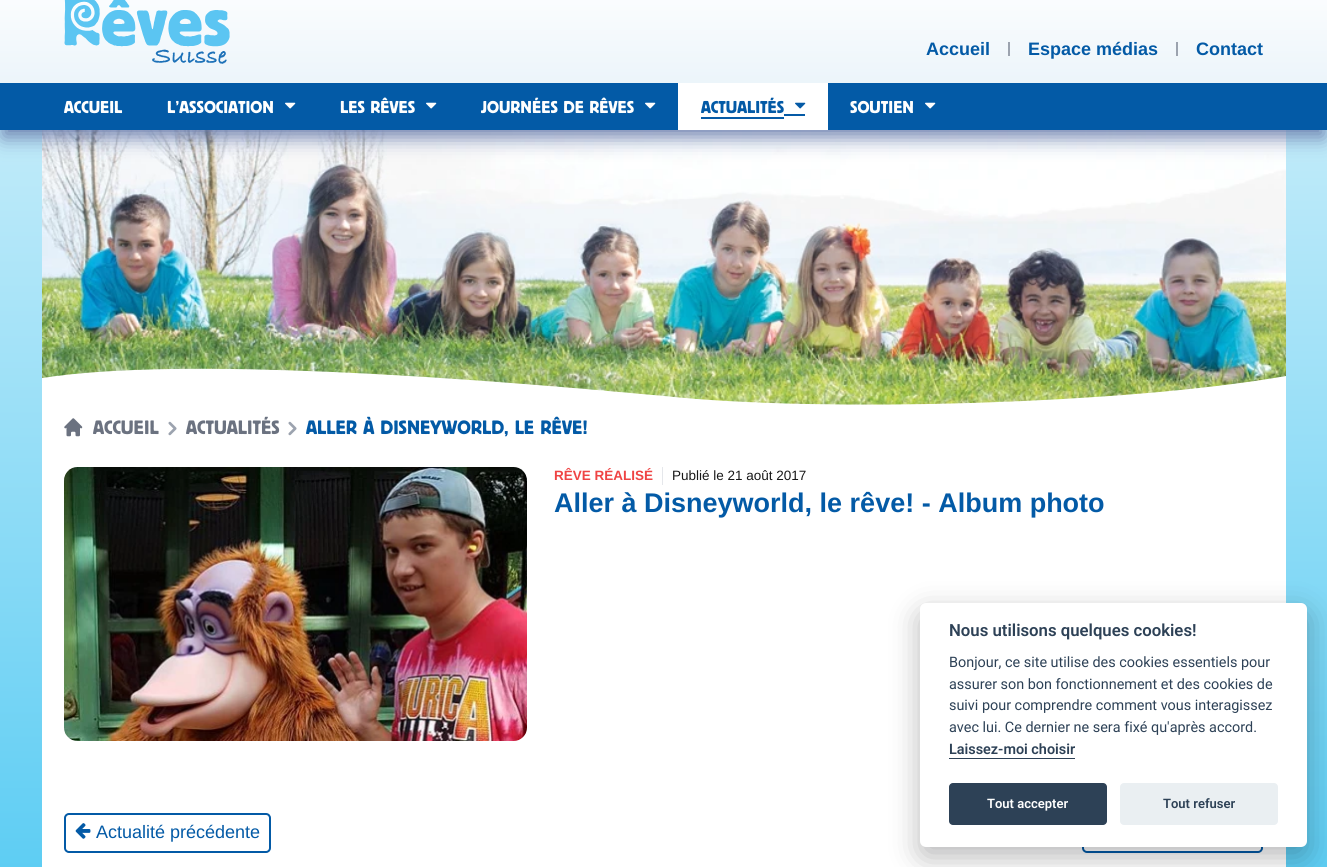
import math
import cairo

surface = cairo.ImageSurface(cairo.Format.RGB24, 1327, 867)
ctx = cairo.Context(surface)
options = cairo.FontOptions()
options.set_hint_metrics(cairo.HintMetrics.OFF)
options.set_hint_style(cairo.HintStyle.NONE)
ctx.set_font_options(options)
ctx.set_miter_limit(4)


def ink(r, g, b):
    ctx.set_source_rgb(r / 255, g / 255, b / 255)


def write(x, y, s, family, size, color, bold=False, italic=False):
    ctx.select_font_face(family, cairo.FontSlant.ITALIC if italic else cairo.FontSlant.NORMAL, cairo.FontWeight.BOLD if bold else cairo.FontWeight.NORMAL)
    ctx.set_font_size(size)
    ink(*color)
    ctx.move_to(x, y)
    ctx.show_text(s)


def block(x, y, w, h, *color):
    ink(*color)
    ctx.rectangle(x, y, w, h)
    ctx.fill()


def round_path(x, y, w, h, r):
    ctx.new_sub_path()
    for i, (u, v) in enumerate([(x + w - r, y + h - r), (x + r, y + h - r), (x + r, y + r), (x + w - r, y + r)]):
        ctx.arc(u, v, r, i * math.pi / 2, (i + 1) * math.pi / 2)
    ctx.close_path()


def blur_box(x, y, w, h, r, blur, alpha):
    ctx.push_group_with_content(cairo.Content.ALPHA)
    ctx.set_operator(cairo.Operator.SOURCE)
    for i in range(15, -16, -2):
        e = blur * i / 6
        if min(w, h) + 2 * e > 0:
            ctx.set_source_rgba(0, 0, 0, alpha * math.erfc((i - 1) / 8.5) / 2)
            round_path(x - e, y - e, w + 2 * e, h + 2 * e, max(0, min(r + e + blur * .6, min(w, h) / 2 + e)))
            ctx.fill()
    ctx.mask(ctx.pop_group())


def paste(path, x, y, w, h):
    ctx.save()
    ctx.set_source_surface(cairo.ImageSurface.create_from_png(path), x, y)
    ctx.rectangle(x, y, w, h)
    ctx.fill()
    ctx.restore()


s1 = dict(family="Liberation Sans", size=18, color=(3, 90, 166), bold=True)
s2 = dict(family="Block", size=18, color=(254, 254, 254))
s3 = dict(family="Block", size=18, color=(3, 90, 166))
s4 = dict(family="Block", size=20.25, color=(107, 114, 128))
s5 = dict(family="Block", size=20.25, color=(3, 90, 166))
s6 = dict(family="Liberation Sans", size=13.5, color=(239, 68, 68), bold=True)
s7 = dict(family="Liberation Sans", size=13.5, color=(23, 23, 23))
s8 = dict(family="Liberation Sans", size=27, color=(3, 90, 166), bold=True)
s9 = dict(family="Liberation Sans", size=18, color=(3, 90, 166))
s10 = dict(family="Roboto SemiBold", size=16.75, color=(45, 65, 86))
s11 = dict(family="Roboto", size=14.4, color=(45, 65, 86))
s12 = dict(family="Roboto SemiBold", size=14.4, color=(45, 65, 86))
s13 = dict(family="Roboto SemiBold", size=13, color=(254, 254, 254))
s14 = dict(family="Roboto SemiBold", size=13, color=(45, 65, 86))

ink(255, 255, 255)
ctx.paint()
gradient = cairo.LinearGradient(663, -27, 664, 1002)
gradient.add_color_stop_rgba(0, 0.835, 0.945, 0.984, 1)
gradient.add_color_stop_rgba(1, 0.298, 0.784, 0.949, 1)
ctx.set_source(gradient)
ctx.rectangle(0, 130, 1327, 737)
ctx.fill()
paste("pic4.png", 42, 130, 1244, 275)
ink(107, 126, 173)
blur_box(3, -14, 1321, 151, 0, 10, 1)
gradient = cairo.LinearGradient(664, -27, 664, 130)
gradient.add_color_stop_rgba(0, 1, 1, 1, 1)
gradient.add_color_stop_rgba(1, 0.894, 0.941, 0.973, 1)
ctx.set_source(gradient)
ctx.rectangle(0, 0, 1327, 83)
ctx.fill()
paste("pic1.png", 64, 0, 166, 64)
write(926, 55, "Accueil", **s1)
block(1008, 42, 2, 14, 156, 163, 175)
write(1028, 55, "Espace médias", **s1)
block(1176, 42, 2, 14, 156, 163, 175)
write(1196, 55, "Contact", **s1)
block(0, 83, 1327, 47, 3, 90, 166)
write(64, 113, "ACCUEIL", **s2)
write(167, 113, "L’ASSOCIATION", **s2)
paste("pic2.png", 285, 102, 11, 7)
write(340, 113, "LES RÊVES", **s2)
paste("pic2.png", 426, 102, 11, 7)
write(481, 113, "JOURNÉES DE RÊVES", **s2)
paste("pic2.png", 645, 102, 11, 7)
block(678, 83, 150, 47, 255, 255, 255)
write(701, 113, "ACTUALITÉS", **s3)
block(701, 117, 83, 2, 5, 90, 166)
block(784, 114, 21, 2, 5, 90, 166)
paste("pic3.png", 795, 102, 11, 7)
write(850, 113, "SOUTIEN", **s2)
paste("pic2.png", 925, 102, 11, 7)
ctx.save()
ctx.rectangle(42, 358, 1244, 92)
ctx.clip()
ink(255, 255, 255)
ctx.new_path()
ctx.move_to(42, 378)
ctx.curve_to(184, 356, 469, 378, 664, 396)
ctx.curve_to(824, 413, 1126, 404, 1286, 376)
ctx.line_to(1286, 486)
ctx.line_to(42, 486)
ctx.fill()
ctx.restore()
paste("pic5.png", 64, 418, 19, 19)
write(93, 434, "ACCUEIL", **s4)
paste("pic6.png", 168, 421, 9, 15)
write(186, 434, "ACTUALITÉS", **s4)
paste("pic6.png", 288, 421, 9, 15)
write(306, 434, "ALLER À DISNEYWORLD, LE RÊVE!", **s5)
block(42, 450, 1244, 417, 255, 255, 255)
paste("pic7.png", 64, 467, 463, 274)
write(554, 480, "RÊVE RÉALISÉ", **s6)
block(662, 467, 1, 18, 229, 231, 235)
write(672, 480, "Publié le 21 août 2017", **s7)
write(554, 512, "Aller à Disneyworld, le rêve! - Album photo", **s8)
round_path(65, 814, 205, 38, 4)
ctx.stroke()
paste("pic8.png", 75, 823, 16, 16)
write(96, 838, "Actualité", **s9)
write(170, 838, "précédente", **s9)
round_path(1083, 814, 179, 38, 4)
ctx.stroke()
ink(2, 2, 3)
blur_box(920, 613, 387, 244, 6, 15, 0.28)
ink(255, 255, 255)
round_path(920, 603, 387, 244, 6)
ctx.fill()
write(949, 636, "Nous utilisons quelques cookies!", **s10)
write(949, 667, "Bonjour, ce site utilise des cookies essentiels pour", **s11)
write(949, 689, "assurer son bon fonctionnement et des cookies de", **s11)
write(949, 710, "suivi pour comprendre comment vous interagissez", **s11)
write(949, 732, "avec lui. Ce dernier ne sera fixé qu'après accord.", **s11)
write(949, 754, "Laissez-moi choisir", **s12)
block(949, 758, 126, 1, 45, 65, 86)
round_path(949, 783, 158, 42, 4)
ctx.fill()
write(987, 808, "Tout accepter", **s13)
ink(234, 239, 242)
round_path(1120, 783, 158, 42, 4)
ctx.fill()
write(1163, 808, "Tout refuser", **s14)
surface.write_to_png("screenshot.png")
